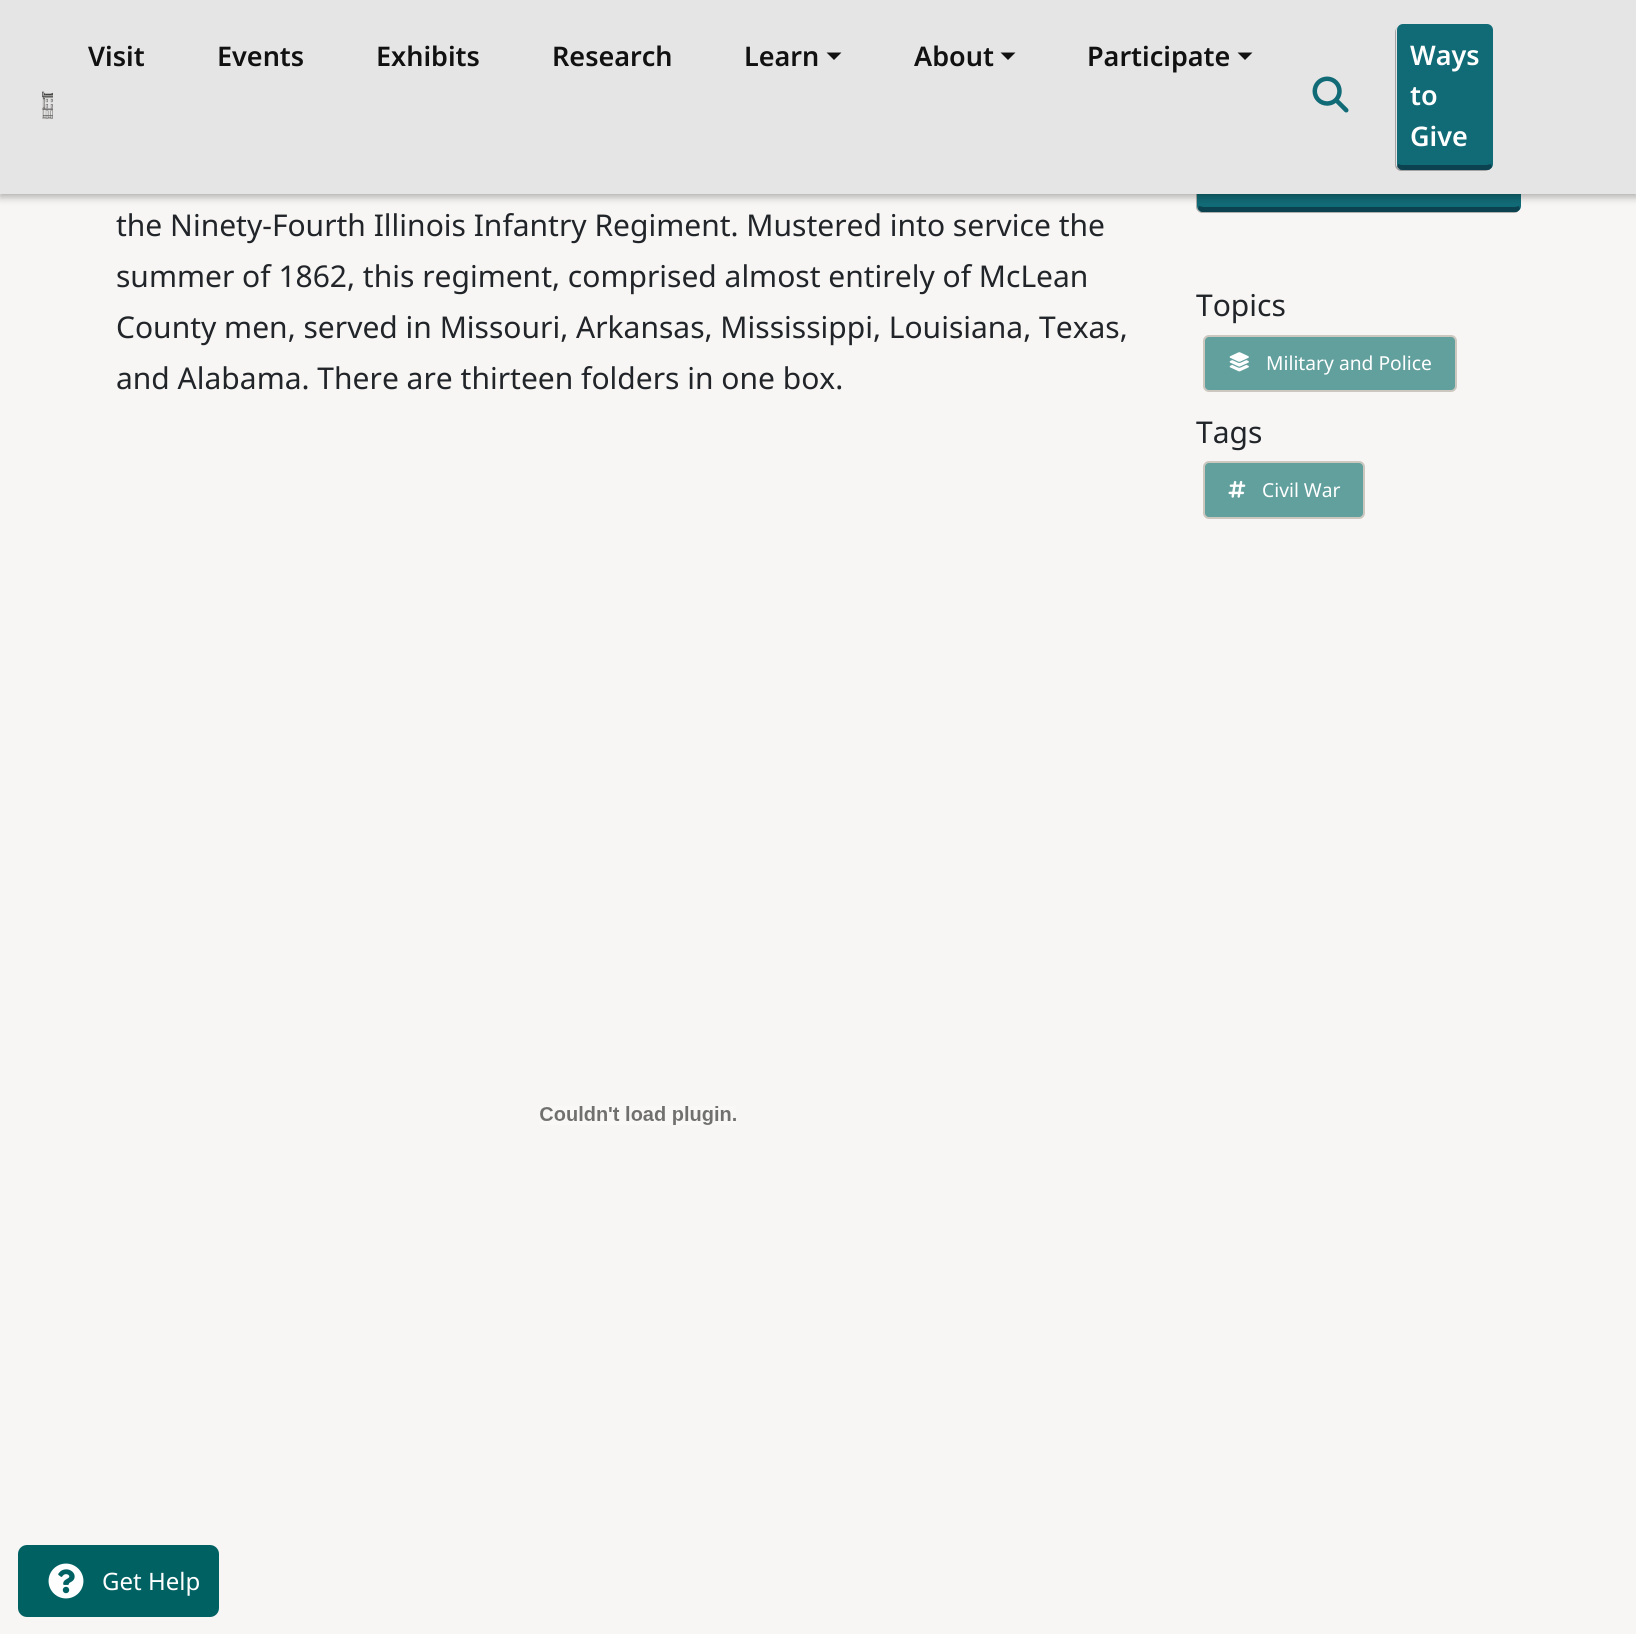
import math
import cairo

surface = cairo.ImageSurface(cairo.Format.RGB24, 1636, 1634)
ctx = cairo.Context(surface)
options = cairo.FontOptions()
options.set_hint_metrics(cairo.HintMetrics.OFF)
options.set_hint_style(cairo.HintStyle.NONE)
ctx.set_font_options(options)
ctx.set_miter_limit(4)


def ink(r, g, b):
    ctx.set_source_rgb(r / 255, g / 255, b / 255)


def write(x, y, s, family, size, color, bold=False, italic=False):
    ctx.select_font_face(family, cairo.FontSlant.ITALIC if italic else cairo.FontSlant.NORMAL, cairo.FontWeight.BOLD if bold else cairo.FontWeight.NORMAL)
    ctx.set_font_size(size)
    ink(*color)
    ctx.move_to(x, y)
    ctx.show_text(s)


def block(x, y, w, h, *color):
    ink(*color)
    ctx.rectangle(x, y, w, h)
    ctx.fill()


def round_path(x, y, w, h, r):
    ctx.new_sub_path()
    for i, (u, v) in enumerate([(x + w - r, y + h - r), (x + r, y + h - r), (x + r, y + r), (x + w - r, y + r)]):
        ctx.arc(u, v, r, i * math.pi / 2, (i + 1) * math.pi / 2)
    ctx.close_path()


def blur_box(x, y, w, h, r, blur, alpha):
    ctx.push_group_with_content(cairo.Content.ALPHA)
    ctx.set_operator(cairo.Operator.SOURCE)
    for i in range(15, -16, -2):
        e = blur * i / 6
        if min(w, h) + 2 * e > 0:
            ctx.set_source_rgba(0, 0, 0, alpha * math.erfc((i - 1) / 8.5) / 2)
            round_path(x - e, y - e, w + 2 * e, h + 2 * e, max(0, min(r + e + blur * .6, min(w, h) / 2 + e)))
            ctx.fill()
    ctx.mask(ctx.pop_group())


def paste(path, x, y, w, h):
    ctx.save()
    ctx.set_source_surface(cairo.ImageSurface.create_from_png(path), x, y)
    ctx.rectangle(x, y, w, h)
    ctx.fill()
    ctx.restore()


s1 = dict(family="Noto Sans SemiBold", size=27, color=(17, 17, 17))
s2 = dict(family="Noto Sans SemiBold", size=27, color=(255, 255, 255))
s3 = dict(family="Noto Sans", size=30, color=(33, 37, 41))
s4 = dict(family="Noto Sans", size=19.25, color=(255, 255, 255))
s5 = dict(family="Noto Sans", size=24, color=(255, 255, 255))

ink(247, 246, 244)
ctx.paint()
ink(175, 175, 173)
ctx.new_path()
ctx.move_to(1198, 152)
ctx.curve_to(1197, 153, 1196, 154, 1196, 156)
ctx.line_to(1196, 207)
ctx.curve_to(1196, 210, 1199, 213, 1202, 213)
ctx.line_to(1514, 213)
ctx.curve_to(1516, 213, 1518, 212, 1519, 210)
ctx.curve_to(1518, 211, 1517, 212, 1515, 212)
ctx.line_to(1203, 212)
ctx.curve_to(1200, 212, 1197, 209, 1197, 206)
ctx.line_to(1197, 154)
ctx.close_path()
ctx.fill()
ink(17, 107, 119)
round_path(1197, 149, 324, 63, 6)
ctx.fill()
ctx.set_source_rgba(0.039, 0.173, 0.227, 0.65)
ctx.new_path()
ctx.move_to(1201, 212)
ctx.line_to(1198, 209)
ctx.line_to(1199, 206)
ctx.line_to(1203, 207)
ctx.line_to(1515, 207)
ctx.line_to(1519, 206)
ctx.line_to(1520, 209)
ctx.line_to(1517, 212)
ctx.close_path()
ctx.fill()
ink(0, 0, 0)
blur_box(0, 3, 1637, 194, 0, 4, 0.3)
block(0, 0, 1636, 194, 229, 229, 229)
paste("pic1.png", 42, 91, 11, 29)
write(88, 66, "Visit", **s1)
write(217, 66, "Events", **s1)
write(376, 66, "Exhibits", **s1)
write(552, 66, "Research", **s1)
write(744, 66, "Learn", **s1)
ctx.new_path()
ctx.move_to(826.5, 52.5)
ctx.line_to(841.5, 52.5)
ctx.line_to(834, 60)
ctx.close_path()
ctx.fill()
write(914, 66, "About", **s1)
ctx.new_path()
ctx.move_to(1000.5, 52.5)
ctx.line_to(1015.5, 52.5)
ctx.line_to(1008, 60)
ctx.close_path()
ctx.fill()
write(1087, 66, "Participate", **s1)
ctx.new_path()
ctx.move_to(1237.5, 52.5)
ctx.line_to(1252.5, 52.5)
ctx.line_to(1245, 60)
ctx.close_path()
ctx.fill()
ink(163, 163, 163)
ctx.new_path()
ctx.move_to(1397, 27)
ctx.curve_to(1396, 29, 1395, 30, 1395, 32)
ctx.line_to(1395, 165)
ctx.curve_to(1395, 168, 1398, 171, 1401, 171)
ctx.line_to(1485, 171)
ctx.curve_to(1487, 171, 1489, 170, 1490, 168)
ctx.curve_to(1489, 169, 1488, 170, 1486, 170)
ctx.line_to(1402, 170)
ctx.curve_to(1399, 170, 1396, 167, 1396, 164)
ctx.line_to(1396, 30)
ctx.close_path()
ctx.fill()
ink(17, 107, 119)
round_path(1397, 24, 96, 146, 6)
ctx.fill()
ctx.set_source_rgba(0.039, 0.173, 0.227, 0.65)
ctx.new_path()
ctx.move_to(1400, 170)
ctx.line_to(1397, 167)
ctx.line_to(1398, 164)
ctx.curve_to(1399, 164, 1400, 165, 1402, 165)
ctx.line_to(1486, 165)
ctx.curve_to(1488, 165, 1490, 164, 1491, 164)
ctx.line_to(1492, 167)
ctx.curve_to(1491, 168, 1490, 169, 1489, 170)
ctx.close_path()
ctx.fill()
write(1410, 65, "Ways", **s2)
write(1410, 105, "to", **s2)
write(1410, 146, "Give", **s2)
paste("pic2.png", 1312, 76, 37, 37)
write(116, 236, "the Ninety-Fourth Illinois Infantry Regiment. Mustered into service the", **s3)
write(116, 287, "summer of 1862, this regiment, comprised almost entirely of McLean", **s3)
write(116, 338, "County men, served in Missouri, Arkansas, Mississippi, Louisiana, Texas,", **s3)
write(116, 389, "and Alabama. There are thirteen folders in one box.", **s3)
paste("pic3.png", 540, 1106, 196, 19)
write(1196, 316, "Topics", **s3)
ink(98, 160, 158)
round_path(1204, 336, 252, 55, 5)
ctx.fill_preserve()
ink(205, 200, 191)
ctx.stroke()
paste("pic4.png", 1229, 352, 20, 20)
write(1266, 370, "Military and Police", **s4)
write(1196, 443, "Tags", **s3)
ink(98, 160, 158)
round_path(1204, 462, 160, 56, 5)
ctx.fill_preserve()
ink(205, 200, 191)
ctx.stroke()
paste("pic5.png", 1228, 480, 18, 18)
write(1262, 497, "Civil War", **s4)
ink(0, 97, 99)
round_path(18, 1545, 201, 72, 9)
ctx.fill()
paste("pic6.png", 48, 1563, 36, 36)
write(102, 1590, "Get Help", **s5)
surface.write_to_png("screenshot.png")
